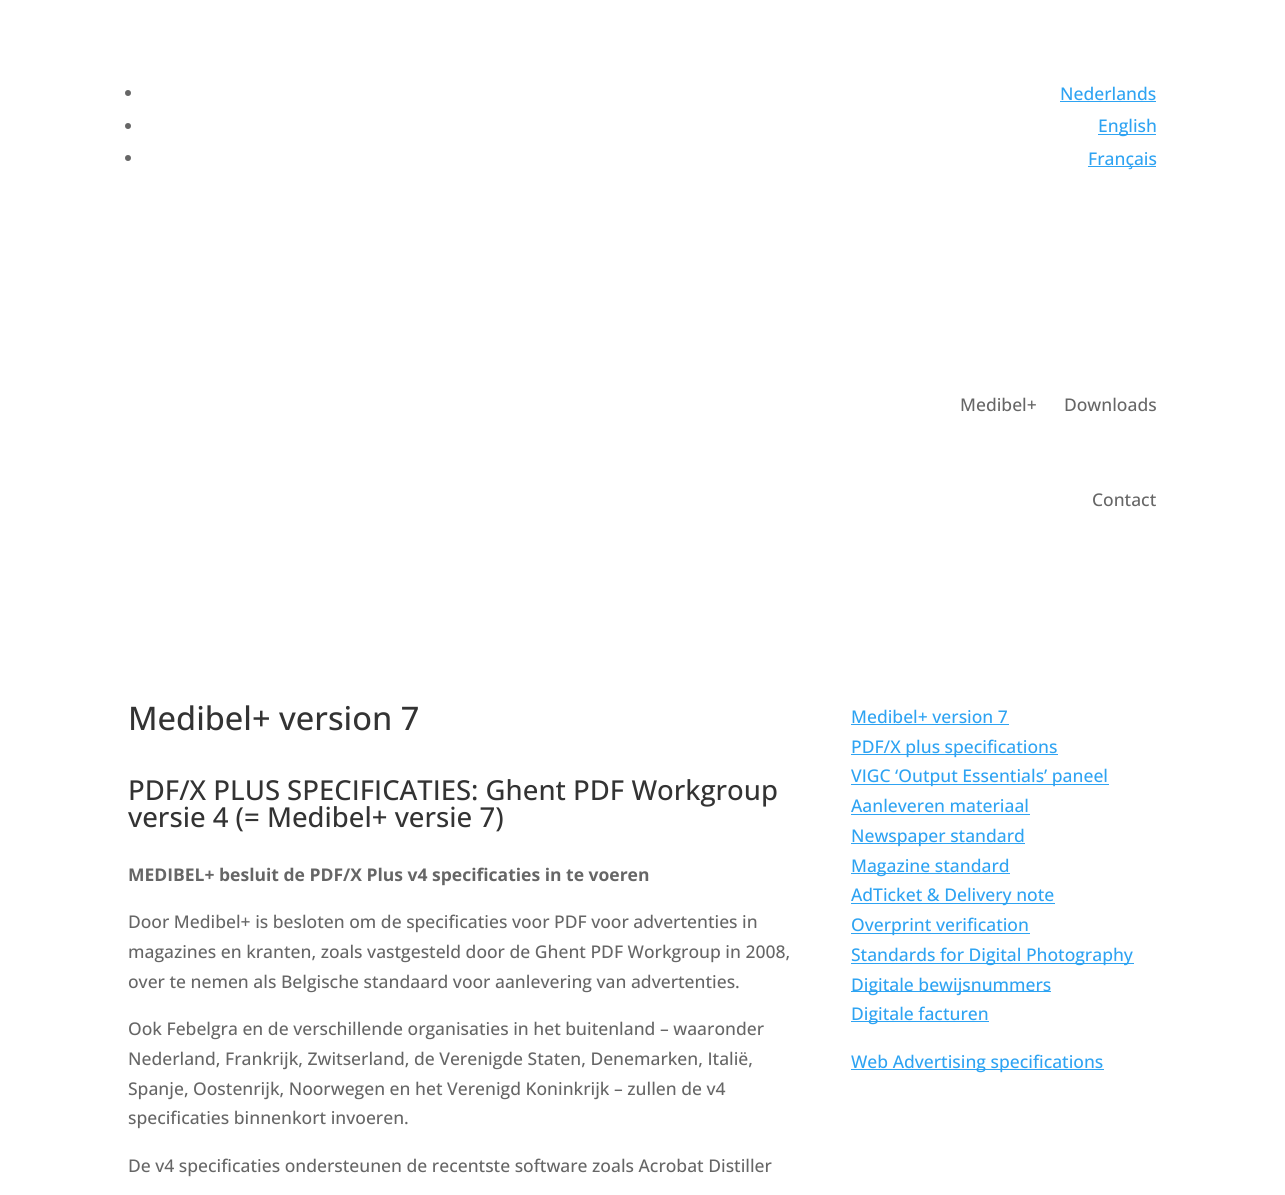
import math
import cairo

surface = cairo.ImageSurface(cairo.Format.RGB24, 1285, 1195)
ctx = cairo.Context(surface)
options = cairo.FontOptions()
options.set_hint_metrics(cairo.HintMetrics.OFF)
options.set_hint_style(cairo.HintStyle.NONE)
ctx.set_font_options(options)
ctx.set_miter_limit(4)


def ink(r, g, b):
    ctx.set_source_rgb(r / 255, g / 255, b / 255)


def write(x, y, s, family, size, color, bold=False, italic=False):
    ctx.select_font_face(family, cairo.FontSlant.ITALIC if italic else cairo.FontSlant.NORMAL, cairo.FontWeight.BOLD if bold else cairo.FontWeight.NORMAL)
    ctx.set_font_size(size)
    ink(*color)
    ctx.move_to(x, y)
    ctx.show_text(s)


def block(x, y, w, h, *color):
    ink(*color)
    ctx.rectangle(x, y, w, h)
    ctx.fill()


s1 = dict(family="Open Sans Medium", size=17.5, color=(46, 163, 242))
s2 = dict(family="Open Sans Medium", size=17.5, color=(102, 102, 102))
s3 = dict(family="Open Sans Medium", size=32.5, color=(51, 51, 51))
s4 = dict(family="Open Sans Medium", size=27.5, color=(51, 51, 51))
s5 = dict(family="Open Sans", size=17.5, color=(102, 102, 102), bold=True)

ink(255, 255, 255)
ctx.paint()
ink(102, 102, 102)
ctx.arc(128, 93, 3, 0, 2 * math.pi)
ctx.fill()
write(1060, 100, "Nederlands", **s1)
block(1060, 101, 96, 1, 46, 163, 242)
ink(102, 102, 102)
ctx.new_path()
ctx.arc(128, 126, 3, 0, 2 * math.pi)
ctx.fill()
block(1098, 134, 58, 1, 46, 163, 242)
write(1098, 132, "English", **s1)
ink(102, 102, 102)
ctx.new_path()
ctx.arc(128, 158, 3, 0, 2 * math.pi)
ctx.fill()
block(1088, 166, 68, 1, 46, 163, 242)
write(1088, 165, "Français", **s1)
write(960, 411, "Medibel+", **s2)
write(1064, 411, "Downloads", **s2)
write(1092, 506, "Contact", **s2)
write(128, 730, "Medibel+ version 7", **s3)
write(128, 800, "PDF/X PLUS SPECIFICATIES: Ghent PDF Workgroup", **s4)
write(128, 827, "versie 4 (= Medibel+ versie 7)", **s4)
write(128, 881, "MEDIBEL+ besluit de PDF/X Plus v4 specificaties in te voeren", **s5)
write(128, 928, "Door Medibel+ is besloten om de specificaties voor PDF voor advertenties in", **s2)
write(128, 958, "magazines en kranten, zoals vastgesteld door de Ghent PDF Workgroup in 2008,", **s2)
write(128, 988, "over te nemen als Belgische standaard voor aanlevering van advertenties.", **s2)
write(128, 1035, "Ook Febelgra en de verschillende organisaties in het buitenland – waaronder", **s2)
write(128, 1065, "Nederland, Frankrijk, Zwitserland, de Verenigde Staten, Denemarken, Italië,", **s2)
write(128, 1095, "Spanje, Oostenrijk, Noorwegen en het Verenigd Koninkrijk – zullen de v4", **s2)
write(128, 1124, "specificaties binnenkort invoeren.", **s2)
write(128, 1172, "De v4 specificaties ondersteunen de recentste software zoals Acrobat Distiller", **s2)
write(851, 723, "Medibel+ version 7", **s1)
block(851, 724, 158, 1, 46, 163, 242)
block(851, 754, 207, 1, 46, 163, 242)
write(851, 753, "PDF/X plus specifications", **s1)
block(851, 784, 258, 1, 46, 163, 242)
write(851, 782, "VIGC ‘Output Essentials’ paneel", **s1)
write(851, 812, "Aanleveren materiaal", **s1)
block(851, 814, 179, 1, 46, 163, 242)
block(851, 843, 174, 1, 46, 163, 242)
write(851, 842, "Newspaper standard", **s1)
block(851, 873, 159, 1, 46, 163, 242)
write(851, 872, "Magazine standard", **s1)
block(851, 903, 204, 1, 46, 163, 242)
write(851, 901, "AdTicket & Delivery note", **s1)
block(851, 933, 179, 1, 46, 163, 242)
write(851, 931, "Overprint verification", **s1)
block(851, 963, 283, 1, 46, 163, 242)
write(851, 961, "Standards for Digital Photography", **s1)
block(851, 991, 200, 1, 46, 163, 242)
write(851, 991, "Digitale bewijsnummers", **s1)
block(851, 1021, 138, 1, 46, 163, 242)
write(851, 1020, "Digitale facturen", **s1)
block(851, 1069, 253, 1, 46, 163, 242)
write(851, 1068, "Web Advertising specifications", **s1)
surface.write_to_png("screenshot.png")
